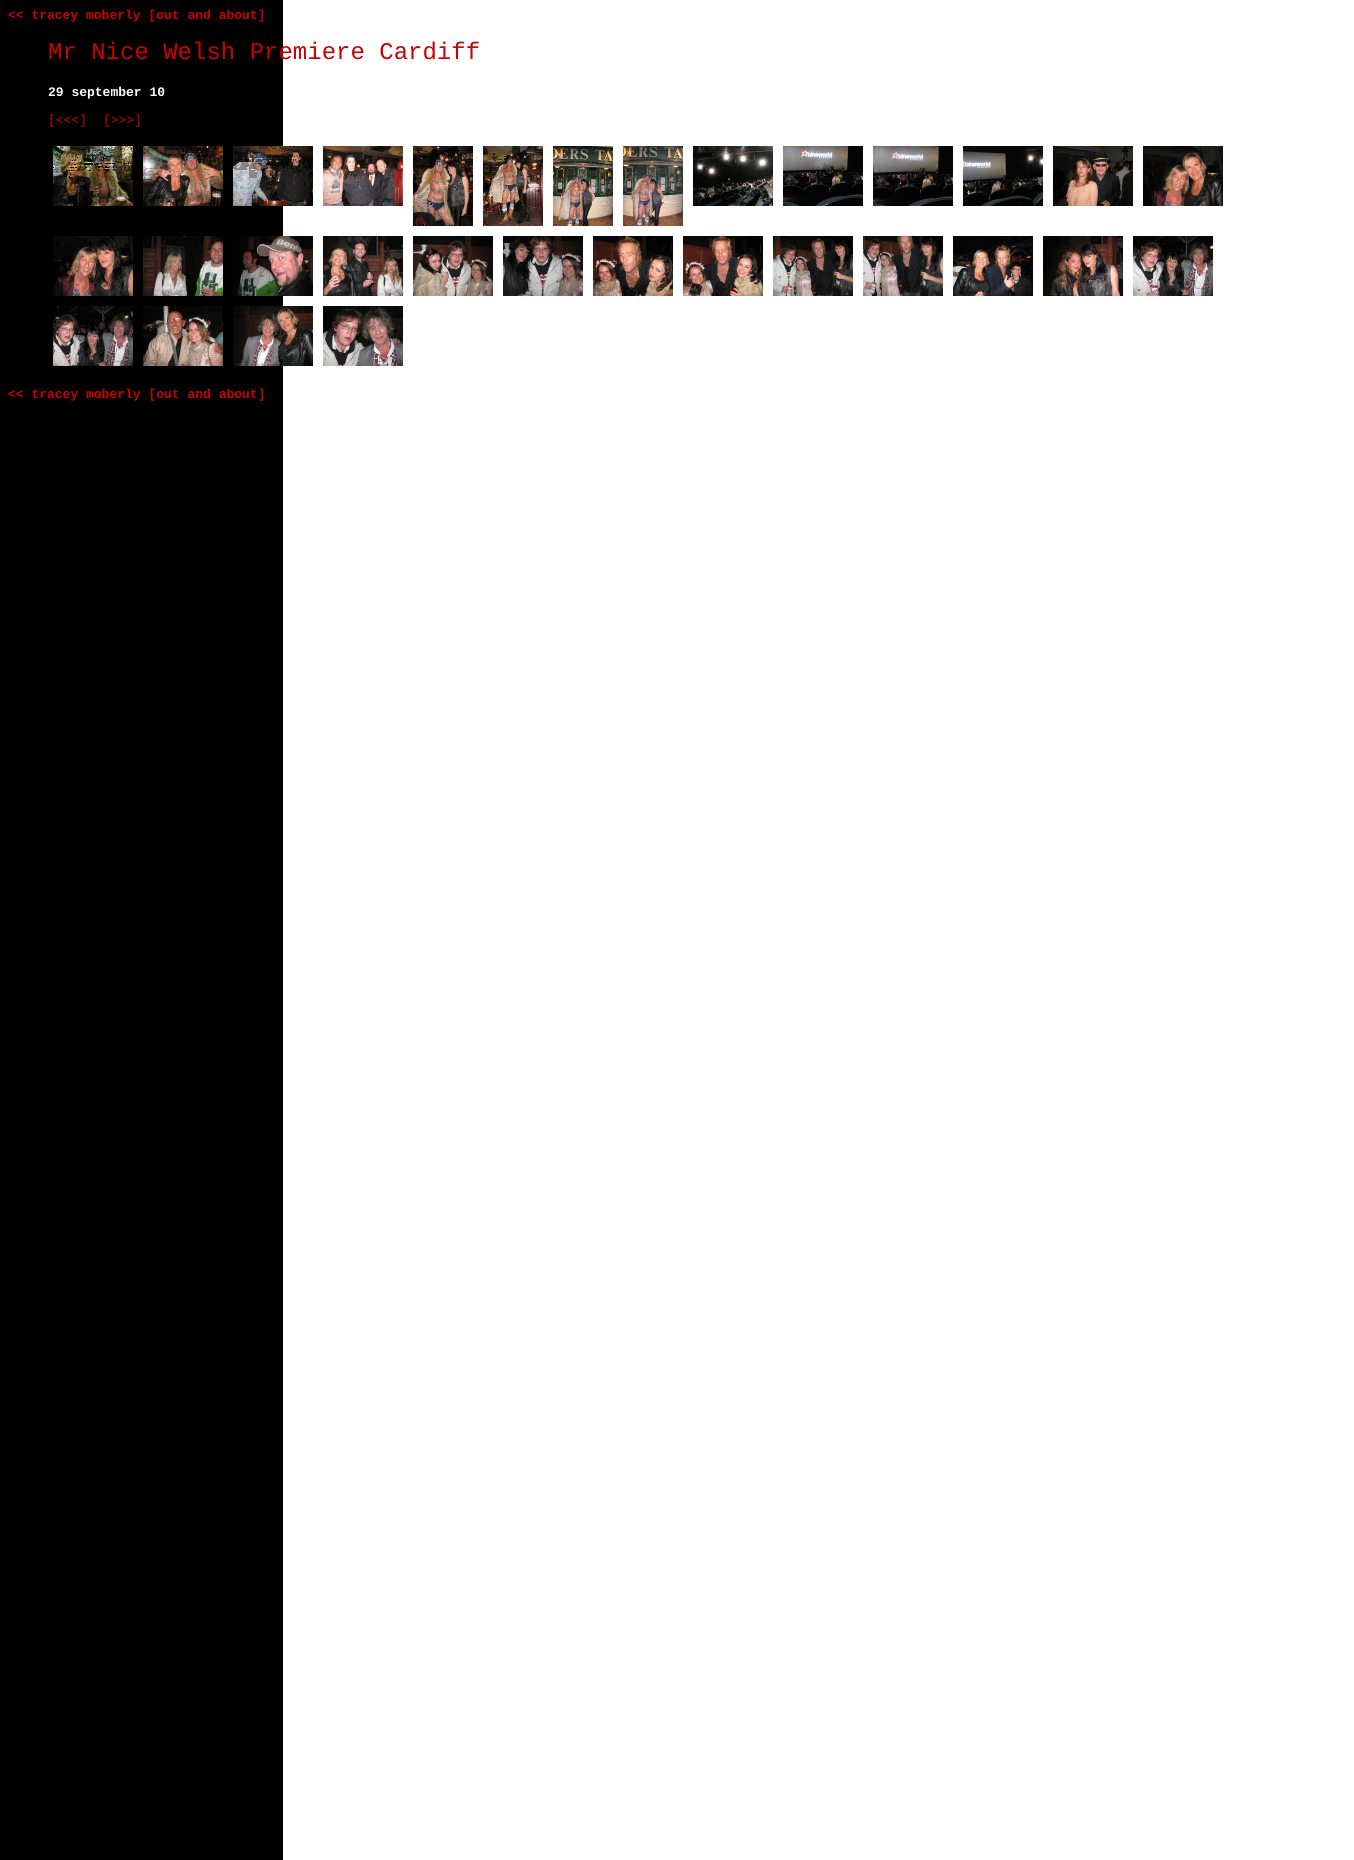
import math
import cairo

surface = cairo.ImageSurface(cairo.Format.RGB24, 1354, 1860)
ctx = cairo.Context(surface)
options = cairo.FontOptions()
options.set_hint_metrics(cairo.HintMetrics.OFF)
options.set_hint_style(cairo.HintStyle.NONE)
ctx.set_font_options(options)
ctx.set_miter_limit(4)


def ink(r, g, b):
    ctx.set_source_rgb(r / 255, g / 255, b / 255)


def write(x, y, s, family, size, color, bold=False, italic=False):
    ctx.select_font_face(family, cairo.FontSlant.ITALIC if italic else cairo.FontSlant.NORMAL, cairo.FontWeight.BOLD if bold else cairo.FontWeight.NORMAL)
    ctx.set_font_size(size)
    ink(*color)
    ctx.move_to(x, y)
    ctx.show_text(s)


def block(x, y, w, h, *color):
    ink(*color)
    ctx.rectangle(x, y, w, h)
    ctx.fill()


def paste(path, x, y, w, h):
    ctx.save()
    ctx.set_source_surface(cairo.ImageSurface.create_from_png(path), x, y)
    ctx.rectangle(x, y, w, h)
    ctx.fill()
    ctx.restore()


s1 = dict(family="Liberation Mono", size=13, color=(204, 0, 0), bold=True)
s2 = dict(family="Liberation Mono", size=24, color=(204, 0, 0))
s3 = dict(family="Liberation Mono", size=13, color=(255, 255, 255), bold=True)
s4 = dict(family="Liberation Mono", size=13, color=(204, 0, 0))

ink(255, 255, 255)
ctx.paint()
block(0, 0, 283, 1860, 0, 0, 0)
write(8, 19, "<< tracey moberly [out and about]", **s1)
write(48, 59, "Mr Nice Welsh Premiere Cardiff", **s2)
write(48, 96, "29 september 10", **s3)
write(48, 124, "[<<<]", **s4)
write(103, 124, "[>>>]", **s4)
paste("pic1.png", 53, 146, 80, 60)
paste("pic2.png", 143, 146, 80, 60)
paste("pic3.png", 233, 146, 80, 60)
paste("pic4.png", 323, 146, 80, 60)
paste("pic5.png", 413, 146, 60, 80)
paste("pic6.png", 483, 146, 60, 80)
paste("pic7.png", 553, 146, 60, 80)
paste("pic8.png", 623, 146, 60, 80)
paste("pic9.png", 693, 146, 80, 60)
paste("pic10.png", 783, 146, 80, 60)
paste("pic11.png", 873, 146, 80, 60)
paste("pic12.png", 963, 146, 80, 60)
paste("pic13.png", 1053, 146, 80, 60)
paste("pic14.png", 1143, 146, 80, 60)
paste("pic15.png", 53, 236, 80, 60)
paste("pic16.png", 143, 236, 80, 60)
paste("pic17.png", 233, 236, 80, 60)
paste("pic18.png", 323, 236, 80, 60)
paste("pic19.png", 413, 236, 80, 60)
paste("pic20.png", 503, 236, 80, 60)
paste("pic21.png", 593, 236, 80, 60)
paste("pic22.png", 683, 236, 80, 60)
paste("pic23.png", 773, 236, 80, 60)
paste("pic24.png", 863, 236, 80, 60)
paste("pic25.png", 953, 236, 80, 60)
paste("pic26.png", 1043, 236, 80, 60)
paste("pic27.png", 1133, 236, 80, 60)
paste("pic28.png", 53, 306, 80, 60)
paste("pic29.png", 143, 306, 80, 60)
paste("pic30.png", 233, 306, 80, 60)
paste("pic31.png", 323, 306, 80, 60)
write(8, 398, "<< tracey moberly [out and about]", **s1)
surface.write_to_png("screenshot.png")
